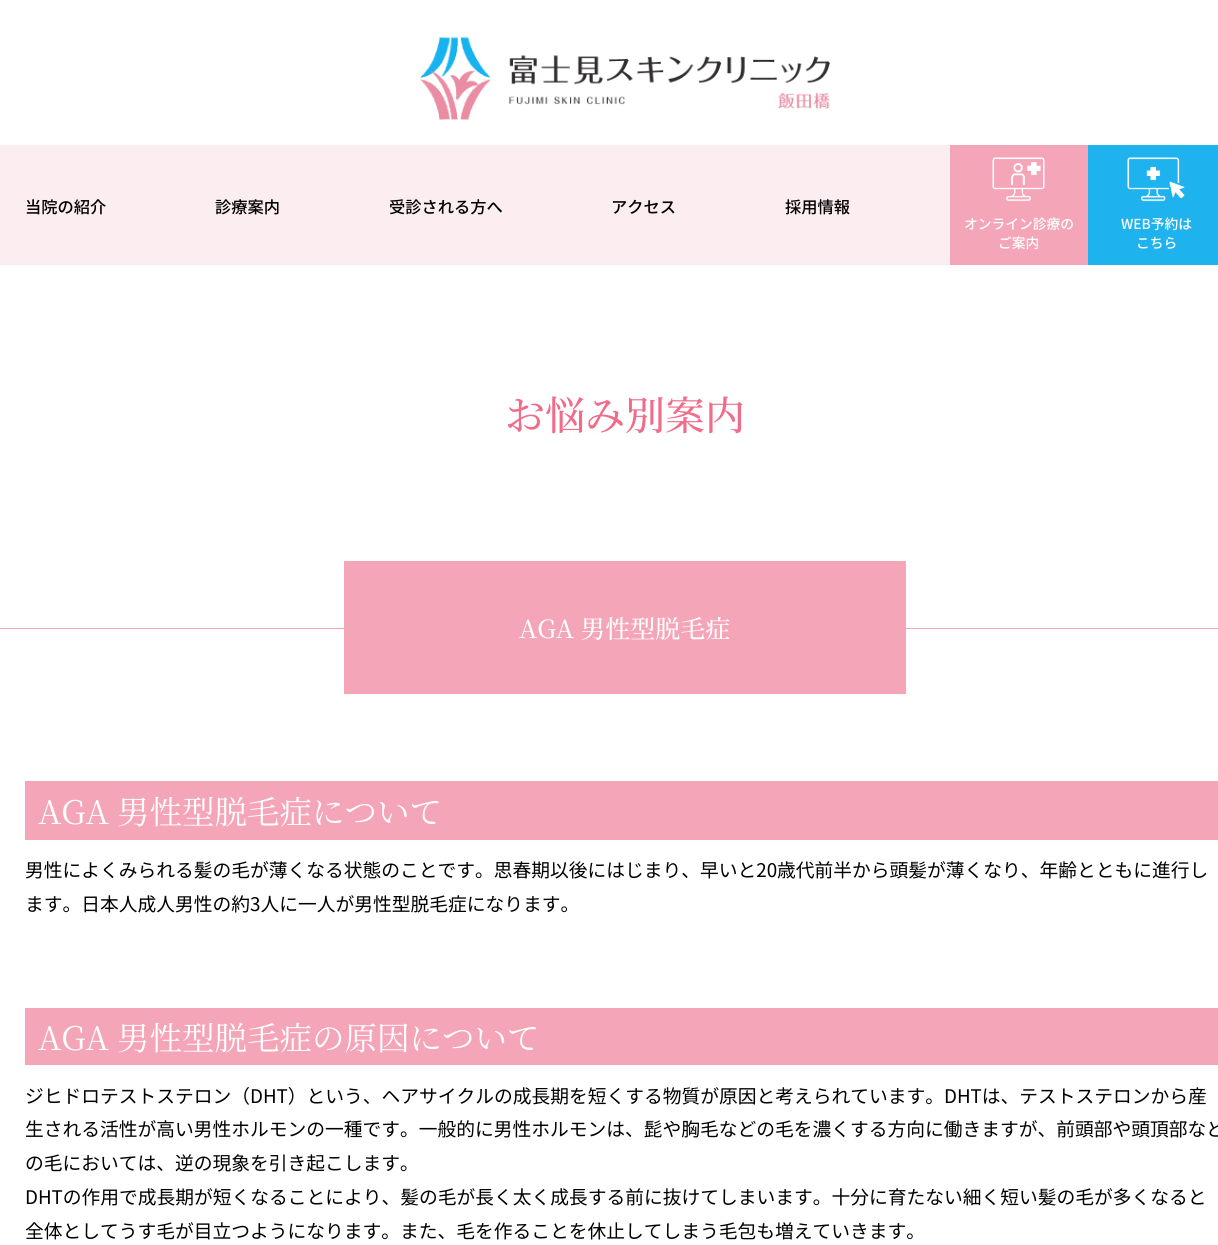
import math
import cairo

surface = cairo.ImageSurface(cairo.Format.RGB24, 1218, 1245)
ctx = cairo.Context(surface)
options = cairo.FontOptions()
options.set_hint_metrics(cairo.HintMetrics.OFF)
options.set_hint_style(cairo.HintStyle.NONE)
ctx.set_font_options(options)
ctx.set_miter_limit(4)


def ink(r, g, b):
    ctx.set_source_rgb(r / 255, g / 255, b / 255)


def write(x, y, s, family, size, color, bold=False, italic=False):
    ctx.select_font_face(family, cairo.FontSlant.ITALIC if italic else cairo.FontSlant.NORMAL, cairo.FontWeight.BOLD if bold else cairo.FontWeight.NORMAL)
    ctx.set_font_size(size)
    ink(*color)
    ctx.move_to(x, y)
    ctx.show_text(s)


def block(x, y, w, h, *color):
    ink(*color)
    ctx.rectangle(x, y, w, h)
    ctx.fill()


def paste(path, x, y, w, h):
    ctx.save()
    ctx.set_source_surface(cairo.ImageSurface.create_from_png(path), x, y)
    ctx.rectangle(x, y, w, h)
    ctx.fill()
    ctx.restore()


s1 = dict(family="Noto Sans JP Medium", size=16.25, color=(0, 0, 0))
s2 = dict(family="Noto Sans JP Medium", size=13.75, color=(255, 255, 255))
s3 = dict(family="Noto Serif JP Medium", size=40, color=(239, 109, 138))
s4 = dict(family="Noto Serif JP Medium", size=25, color=(255, 255, 255))
s5 = dict(family="Noto Serif JP", size=32.5, color=(255, 255, 255))
s6 = dict(family="Noto Sans JP", size=18.75, color=(0, 0, 0))

ink(255, 255, 255)
ctx.paint()
paste("pic1.png", 420, 37, 410, 83)
block(0, 145, 950, 120, 251, 237, 240)
write(25, 213, "当院の紹介", **s1)
write(215, 213, "診療案内", **s1)
write(389, 213, "受診される方へ", **s1)
write(611, 213, "アクセス", **s1)
write(785, 213, "採用情報", **s1)
block(950, 145, 138, 120, 245, 165, 184)
paste("pic2.png", 992, 157, 53, 45)
write(964, 229, "オンライン診療の", **s2)
write(998, 248, "ご案内", **s2)
block(1088, 145, 130, 120, 30, 179, 238)
paste("pic3.png", 1127, 157, 58, 45)
write(1121, 229, "WEB予約は", **s2)
write(1136, 248, "こちら", **s2)
write(505, 430, "お悩み別案内", **s3)
block(0, 628, 1218, 1, 245, 165, 184)
block(344, 561, 562, 133, 245, 165, 184)
write(519, 638, "AGA 男性型脱毛症", **s4)
block(25, 781, 1193, 59, 245, 165, 184)
write(38, 824, "AGA 男性型脱毛症について", **s5)
write(25, 877, "男性によくみられる髪の毛が薄くなる状態のことです。思春期以後にはじまり、早いと20歳代前半から頭髪が薄くなり、年齢とともに進行し", **s6)
write(25, 911, "ます。日本人成人男性の約3人に一人が男性型脱毛症になります。", **s6)
block(25, 1008, 1193, 57, 245, 165, 184)
write(38, 1050, "AGA 男性型脱毛症の原因について", **s5)
write(25, 1103, "ジヒドロテストステロン（DHT）という、ヘアサイクルの成長期を短くする物質が原因と考えられています。DHTは、テストステロンから産", **s6)
write(25, 1136, "生される活性が高い男性ホルモンの一種です。一般的に男性ホルモンは、髭や胸毛などの毛を濃くする方向に働きますが、前頭部や頭頂部など", **s6)
write(25, 1170, "の毛においては、逆の現象を引き起こします。", **s6)
write(25, 1204, "DHTの作用で成長期が短くなることにより、髪の毛が長く太く成長する前に抜けてしまいます。十分に育たない細く短い髪の毛が多くなると", **s6)
write(25, 1238, "全体としてうす毛が目立つようになります。また、毛を作ることを休止してしまう毛包も増えていきます。", **s6)
surface.write_to_png("screenshot.png")
